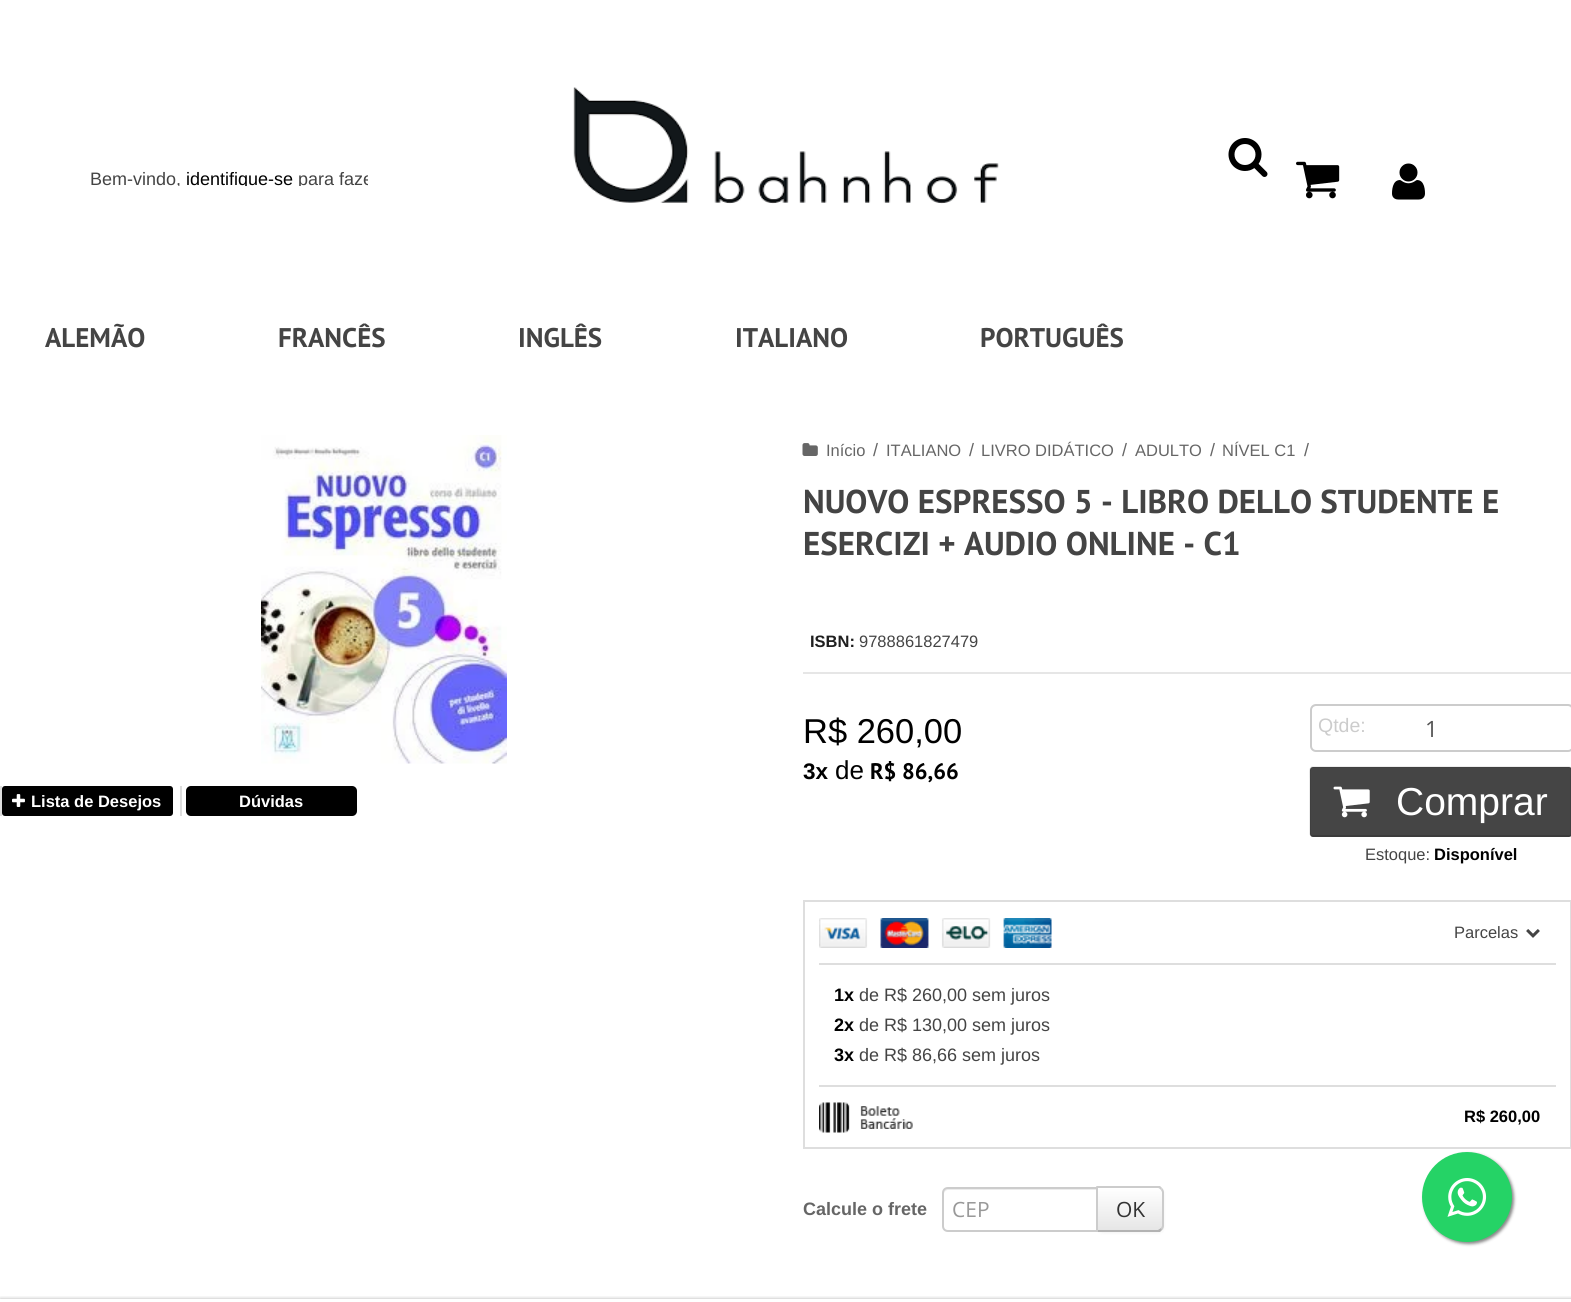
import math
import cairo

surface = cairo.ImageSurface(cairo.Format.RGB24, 1571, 1302)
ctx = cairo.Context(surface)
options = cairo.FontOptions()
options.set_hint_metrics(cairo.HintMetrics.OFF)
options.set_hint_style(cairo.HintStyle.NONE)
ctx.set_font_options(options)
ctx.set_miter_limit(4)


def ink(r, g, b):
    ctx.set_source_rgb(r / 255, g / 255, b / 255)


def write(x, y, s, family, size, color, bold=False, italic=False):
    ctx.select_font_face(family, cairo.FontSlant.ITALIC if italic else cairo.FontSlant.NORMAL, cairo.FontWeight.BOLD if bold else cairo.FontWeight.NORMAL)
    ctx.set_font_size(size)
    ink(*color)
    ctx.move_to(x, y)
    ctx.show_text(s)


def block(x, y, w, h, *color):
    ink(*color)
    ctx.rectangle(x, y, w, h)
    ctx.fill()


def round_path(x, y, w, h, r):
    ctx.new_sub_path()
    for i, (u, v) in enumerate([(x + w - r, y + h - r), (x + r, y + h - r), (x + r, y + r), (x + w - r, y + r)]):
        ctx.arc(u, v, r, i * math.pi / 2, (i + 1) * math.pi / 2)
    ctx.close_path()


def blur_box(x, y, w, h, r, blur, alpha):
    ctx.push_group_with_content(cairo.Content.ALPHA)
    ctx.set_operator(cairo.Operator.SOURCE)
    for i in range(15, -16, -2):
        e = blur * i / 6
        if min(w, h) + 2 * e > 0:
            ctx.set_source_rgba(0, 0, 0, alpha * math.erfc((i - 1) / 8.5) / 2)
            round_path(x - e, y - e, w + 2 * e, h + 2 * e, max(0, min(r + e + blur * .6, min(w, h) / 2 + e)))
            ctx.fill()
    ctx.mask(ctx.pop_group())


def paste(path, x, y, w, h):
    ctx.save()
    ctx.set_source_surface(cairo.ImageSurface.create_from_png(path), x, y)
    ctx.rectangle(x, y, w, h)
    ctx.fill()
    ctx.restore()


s1 = dict(family="Liberation Sans", size=18, color=(68, 68, 68))
s2 = dict(family="Liberation Sans", size=18, color=(0, 0, 0))
s3 = dict(family="PT Sans", size=27, color=(68, 68, 68), bold=True)
s4 = dict(family="Liberation Sans", size=16.5, color=(255, 255, 255), bold=True)
s5 = dict(family="Liberation Sans", size=16.5, color=(102, 102, 102))
s6 = dict(family="Liberation Sans", size=18, color=(102, 102, 102))
s7 = dict(family="PT Sans", size=33, color=(68, 68, 68), bold=True)
s8 = dict(family="Liberation Sans", size=16.5, color=(31, 31, 31), bold=True)
s9 = dict(family="Liberation Sans", size=16.5, color=(68, 68, 68))
s10 = dict(family="Liberation Sans", size=34.5, color=(0, 0, 0))
s11 = dict(family="Liberation Sans", size=22.5, color=(0, 0, 0), bold=True)
s12 = dict(family="Liberation Sans", size=26, color=(0, 0, 0))
s13 = dict(family="PT Sans", size=22.5, color=(0, 0, 0), bold=True)
s14 = dict(family="Liberation Sans", size=19.5, color=(204, 204, 204))
s15 = dict(family="Open Sans", size=22.5, color=(85, 85, 85))
s16 = dict(family="Liberation Sans", size=39, color=(255, 255, 255))
s17 = dict(family="Liberation Sans", size=16.5, color=(0, 0, 0), bold=True)
s18 = dict(family="Liberation Sans", size=18, color=(0, 0, 0), bold=True)
s19 = dict(family="Liberation Sans", size=18, color=(102, 102, 102), bold=True)
s20 = dict(family="Open Sans", size=21, color=(153, 153, 153))
s21 = dict(family="Open Sans", size=21, color=(51, 51, 51))

ink(255, 255, 255)
ctx.paint()
ctx.save()
ctx.rectangle(0, 60, 368, 126)
ctx.clip()
write(90, 185, "Bem-vindo,", **s1)
write(186, 185, "identifique-se", **s2)
write(298, 185, "para faze", **s1)
ctx.restore()
paste("pic1.png", 573, 87, 426, 117)
paste("pic2.png", 1228, 138, 40, 39)
paste("pic3.png", 1296, 161, 44, 38)
paste("pic4.png", 1392, 163, 33, 37)
write(45, 347, "ALEMÃO", **s3)
write(278, 347, "FRANCÊS", **s3)
write(518, 347, "INGLÊS", **s3)
write(735, 347, "ITALIANO", **s3)
write(980, 347, "PORTUGUÊS", **s3)
paste("pic5.png", 261, 435, 246, 329)
block(0, 786, 2, 30, 221, 221, 221)
ink(0, 0, 0)
round_path(2, 786, 171, 30, 3)
ctx.fill()
paste("pic6.png", 12, 794, 13, 13)
write(31, 807, "Lista de Desejos", **s4)
block(180, 786, 2, 30, 221, 221, 221)
ink(0, 0, 0)
round_path(186, 786, 171, 30, 5)
ctx.fill()
ctx.new_path()
ctx.move_to(355, 814)
ctx.curve_to(354.5, 815, 353.5, 815, 352.5, 815)
ctx.line_to(190.5, 815)
ctx.curve_to(189.5, 815, 188.5, 815, 188, 814)
ctx.set_source_rgba(0, 0, 0, 0.2)
ctx.set_line_width(1.5)
ctx.stroke()
ctx.new_path()
ctx.move_to(188, 814)
ctx.curve_to(185.5, 812, 187, 804, 187, 801)
ctx.line_to(187, 794)
ctx.curve_to(187, 791, 186.5, 787, 190.5, 787)
ctx.line_to(352.5, 787)
ctx.curve_to(356.5, 787, 356, 791, 356, 794)
ctx.line_to(356, 801)
ctx.curve_to(356, 804, 357.5, 812, 355, 814)
ctx.set_source_rgba(0, 0, 0, 0.1)
ctx.stroke()
write(239, 807, "Dúvidas", **s4)
paste("pic7.png", 802, 443, 16, 13)
write(826, 456, "Início", **s5)
write(873, 456, "/", **s6)
write(886, 456, "ITALIANO", **s5)
write(969, 456, "/", **s6)
write(981, 456, "LIVRO DIDÁTICO", **s5)
write(1122, 456, "/", **s6)
write(1135, 456, "ADULTO", **s5)
write(1210, 456, "/", **s6)
write(1222, 456, "NÍVEL C1", **s5)
write(1304, 456, "/", **s6)
write(803, 513, "NUOVO ESPRESSO 5 - LIBRO DELLO STUDENTE E", **s7)
write(803, 555, "ESERCIZI + AUDIO ONLINE - C1", **s7)
block(803, 672, 768, 2, 230, 230, 230)
write(810, 647, "ISBN:", **s8)
write(859, 647, "9788861827479", **s9)
write(803, 743, "R$ 260,00", **s10)
write(803, 779, "3x", **s11)
write(835, 779, "de", **s12)
write(870, 779, "R$ 86,66", **s13)
ink(236, 236, 236)
ctx.new_path()
ctx.move_to(1316, 706)
ctx.line_to(1568, 706)
ctx.curve_to(1570, 706, 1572, 709, 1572, 711)
ctx.curve_to(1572, 708, 1570, 705, 1567, 705)
ctx.line_to(1316, 705)
ctx.curve_to(1313, 705, 1311, 708, 1311, 711)
ctx.curve_to(1311, 709, 1313, 706, 1316, 706)
ctx.close_path()
ctx.fill()
round_path(1311, 705, 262, 46, 5)
ink(204, 204, 204)
ctx.set_line_width(2)
ctx.stroke()
write(1318, 732, "Qtde:", **s14)
write(1425, 737, "1", **s15)
ink(69, 69, 69)
round_path(1310, 767, 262, 70, 3)
ctx.fill()
ctx.new_path()
ctx.move_to(1570.5, 835.5)
ctx.line_to(1569, 836)
ctx.line_to(1312.5, 836)
ctx.line_to(1311, 835.5)
ctx.set_source_rgba(0, 0, 0, 0.2)
ctx.set_line_width(1.5)
ctx.stroke()
ctx.new_path()
ctx.move_to(1311, 835.5)
ctx.line_to(1310, 834)
ctx.line_to(1310, 780)
ctx.curve_to(1310, 775.5, 1308.5, 767.5, 1312.5, 767)
ctx.line_to(1569, 767)
ctx.curve_to(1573, 767.5, 1571, 775.5, 1571, 780)
ctx.line_to(1571, 834)
ctx.line_to(1570.5, 835.5)
ctx.set_source_rgba(0, 0, 0, 0.1)
ctx.stroke()
paste("pic8.png", 1333, 786, 37, 32)
write(1396, 815, "Comprar", **s16)
write(1365, 860, "Estoque:", **s9)
write(1434, 860, "Disponível", **s17)
ctx.rectangle(804, 901, 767, 247)
ink(222, 222, 222)
ctx.set_line_width(2)
ctx.stroke()
paste("pic9.png", 819, 918, 233, 30)
write(1454, 938, "Parcelas", **s9)
paste("pic10.png", 1526, 929, 14, 9)
block(819, 963, 737, 2, 222, 222, 222)
write(834, 1001, "1x", **s18)
write(859, 1001, "de R$ 260,00 sem juros", **s1)
write(834, 1031, "2x", **s18)
write(859, 1031, "de R$ 130,00 sem juros", **s1)
write(834, 1061, "3x", **s18)
write(859, 1061, "de R$ 86,66 sem juros", **s1)
block(819, 1085, 737, 2, 222, 222, 222)
paste("pic11.png", 819, 1102, 94, 31)
write(1464, 1122, "R$ 260,00", **s17)
write(803, 1215, "Calcule o frete", **s19)
ink(0, 0, 0)
blur_box(1097, 1188, 67, 45, 6, 1.5, 0.05)
ink(245, 245, 245)
ctx.new_path()
ctx.move_to(1097, 1187)
ctx.line_to(1158, 1187)
ctx.curve_to(1161.5, 1187, 1164, 1189.5, 1164, 1193)
ctx.line_to(1164, 1226)
ctx.curve_to(1164, 1229.5, 1161.5, 1232, 1158, 1232)
ctx.line_to(1097, 1232)
ctx.close_path()
ctx.fill()
ctx.save()
ctx.new_path()
ctx.move_to(1097, 1187)
ctx.line_to(1158, 1187)
ctx.curve_to(1161.5, 1187, 1164, 1189.5, 1164, 1193)
ctx.line_to(1164, 1226)
ctx.curve_to(1164, 1229.5, 1161.5, 1232, 1158, 1232)
ctx.line_to(1097, 1232)
ctx.close_path()
ctx.clip()
gradient = cairo.LinearGradient(1130, 1188, 1130, 1230)
gradient.add_color_stop_rgba(0, 1, 1, 1, 1)
gradient.add_color_stop_rgba(1, 0.902, 0.902, 0.902, 1)
ctx.set_source(gradient)
ctx.rectangle(1098, 1188, 66, 42)
ctx.fill()
ctx.restore()
ctx.set_source_rgba(1, 1, 1, 0.2)
ctx.new_path()
ctx.move_to(1098, 1190)
ctx.line_to(1148, 1190)
ctx.curve_to(1150, 1190, 1161, 1188, 1162, 1193)
ctx.line_to(1162, 1228)
ctx.curve_to(1163, 1227, 1163, 1226, 1163, 1225)
ctx.line_to(1163, 1193)
ctx.curve_to(1163, 1190, 1161, 1188, 1158, 1188)
ctx.line_to(1098, 1188)
ctx.close_path()
ctx.fill()
ink(204, 204, 204)
ctx.new_path()
ctx.move_to(1098, 1188)
ctx.line_to(1096, 1186)
ctx.line_to(1160, 1186)
ctx.line_to(1162, 1188)
ctx.line_to(1161, 1190)
ctx.curve_to(1160, 1189, 1159, 1188, 1158, 1188)
ctx.close_path()
ctx.fill()
ctx.new_path()
ctx.move_to(1164, 1226)
ctx.line_to(1164, 1192)
ctx.curve_to(1164, 1191, 1163, 1189, 1162, 1188)
ctx.line_to(1161, 1190)
ctx.line_to(1162, 1192)
ctx.line_to(1162, 1226)
ctx.line_to(1161, 1228)
ctx.line_to(1162, 1230)
ctx.curve_to(1163, 1229, 1164, 1227, 1164, 1226)
ctx.close_path()
ctx.fill()
ink(179, 179, 179)
ctx.new_path()
ctx.move_to(1162, 1230)
ctx.line_to(1160, 1232)
ctx.line_to(1096, 1232)
ctx.line_to(1098, 1230)
ctx.line_to(1158, 1230)
ctx.line_to(1161, 1228)
ctx.close_path()
ctx.fill()
ink(204, 204, 204)
ctx.new_path()
ctx.move_to(1096, 1232)
ctx.line_to(1098, 1230)
ctx.line_to(1098, 1188)
ctx.line_to(1096, 1186)
ctx.close_path()
ctx.fill()
ink(255, 255, 255)
ctx.new_path()
ctx.move_to(948, 1187)
ctx.line_to(1098, 1187)
ctx.line_to(1098, 1232)
ctx.line_to(948, 1232)
ctx.curve_to(944.5, 1232, 942, 1229.5, 942, 1226)
ctx.line_to(942, 1193)
ctx.curve_to(942, 1189.5, 944.5, 1187, 948, 1187)
ctx.close_path()
ctx.fill()
ink(236, 236, 236)
ctx.new_path()
ctx.move_to(948, 1190)
ctx.line_to(1096, 1190)
ctx.line_to(1096, 1230)
ctx.line_to(1097, 1230)
ctx.line_to(1097, 1188)
ctx.line_to(949, 1188)
ctx.curve_to(946, 1188, 944, 1190, 944, 1193)
ctx.line_to(944, 1194)
ctx.curve_to(944, 1192, 946, 1190, 948, 1190)
ctx.close_path()
ctx.fill()
ctx.new_path()
ctx.move_to(948, 1188)
ctx.line_to(1097, 1188)
ctx.line_to(1097, 1231)
ctx.line_to(948, 1231)
ctx.curve_to(945, 1231, 943, 1229, 943, 1226)
ctx.line_to(943, 1193)
ctx.curve_to(943, 1190, 945, 1188, 948, 1188)
ctx.close_path()
ink(204, 204, 204)
ctx.stroke()
write(952, 1217, "CEP", **s20)
write(1116, 1217, "OK", **s21)
ctx.save()
ctx.rectangle(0, 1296, 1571, 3)
ctx.clip()
ink(0, 0, 0)
blur_box(0, 1299, 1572, 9, 0, 2, 0.3)
ctx.restore()
ink(136, 136, 136)
blur_box(1424, 1154, 90, 90, 45, 1.5, 1)
ink(37, 211, 102)
ctx.arc(1467, 1197, 45, 0, 2 * math.pi)
ctx.fill()
paste("pic12.png", 1447, 1178, 40, 39)
surface.write_to_png("screenshot.png")
